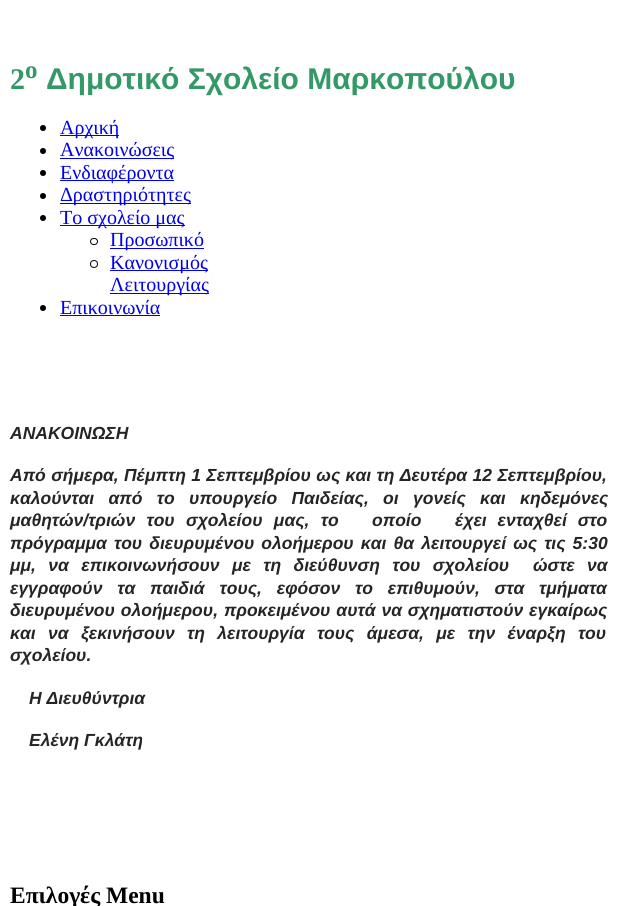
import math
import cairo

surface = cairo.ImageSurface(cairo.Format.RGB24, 617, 906)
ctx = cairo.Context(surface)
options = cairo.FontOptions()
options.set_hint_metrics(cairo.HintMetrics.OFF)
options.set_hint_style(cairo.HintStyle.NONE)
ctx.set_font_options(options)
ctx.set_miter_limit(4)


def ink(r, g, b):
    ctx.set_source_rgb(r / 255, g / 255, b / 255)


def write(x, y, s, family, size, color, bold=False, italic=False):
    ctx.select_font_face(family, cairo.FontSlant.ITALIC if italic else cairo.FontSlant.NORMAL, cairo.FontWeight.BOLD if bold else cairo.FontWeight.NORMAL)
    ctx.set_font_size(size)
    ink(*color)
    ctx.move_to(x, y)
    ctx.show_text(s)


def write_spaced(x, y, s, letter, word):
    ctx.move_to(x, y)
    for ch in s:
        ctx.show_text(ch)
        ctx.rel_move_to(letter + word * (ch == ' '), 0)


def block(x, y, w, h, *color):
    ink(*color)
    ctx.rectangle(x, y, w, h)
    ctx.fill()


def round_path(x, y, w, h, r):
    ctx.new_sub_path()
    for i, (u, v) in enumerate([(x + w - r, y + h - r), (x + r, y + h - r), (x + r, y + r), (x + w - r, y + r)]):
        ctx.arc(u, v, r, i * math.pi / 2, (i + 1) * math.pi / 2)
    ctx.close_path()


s1 = dict(family="Liberation Serif", size=30, color=(51, 153, 102), bold=True)
s2 = dict(family="Liberation Serif", size=25, color=(51, 153, 102), bold=True)
s3 = dict(family="Liberation Sans", size=30, color=(51, 153, 102), bold=True)
s4 = dict(family="Liberation Serif", size=20, color=(0, 0, 238))
s5 = dict(family="Liberation Sans", size=17.5, color=(37, 37, 37), bold=True, italic=True)
s6 = dict(family="Liberation Serif", size=23.5, color=(0, 0, 0), bold=True)

ink(255, 255, 255)
ctx.paint()
write(10, 89, "2", **s1)
write(25, 78, "o", **s2)
write(46, 89, "Δημοτικό Σχολείο Μαρκοπούλου", **s3)
ink(0, 0, 0)
ctx.new_path()
ctx.arc(43, 128, 3, 0, 2 * math.pi)
ctx.fill()
block(60, 135, 59, 1, 0, 0, 238)
write(60, 134, "Αρχική", **s4)
ink(0, 0, 0)
ctx.new_path()
ctx.arc(43, 151, 3, 0, 2 * math.pi)
ctx.fill()
block(60, 158, 114, 1, 0, 0, 238)
write(60, 156, "Ανακοινώσεις", **s4)
ink(0, 0, 0)
ctx.new_path()
ctx.arc(43, 173, 3, 0, 2 * math.pi)
ctx.fill()
block(60, 180, 114, 1, 0, 0, 238)
write(60, 179, "Ενδιαφέροντα", **s4)
ink(0, 0, 0)
ctx.new_path()
ctx.arc(43, 196, 3, 0, 2 * math.pi)
ctx.fill()
block(60, 203, 131, 1, 0, 0, 238)
write(60, 201, "Δραστηριότητες", **s4)
ink(0, 0, 0)
ctx.new_path()
ctx.arc(43, 218, 3, 0, 2 * math.pi)
ctx.fill()
block(60, 225, 125, 1, 0, 0, 238)
write(60, 224, "Το σχολείο μας", **s4)
round_path(90.5, 238.5, 7, 6, 3)
ink(0, 0, 0)
ctx.set_line_width(1)
ctx.stroke()
block(110, 248, 94, 1, 0, 0, 238)
write(110, 246, "Προσωπικό", **s4)
ctx.new_path()
ctx.arc(94, 264, 3.5, 0, 2 * math.pi)
ink(0, 0, 0)
ctx.stroke()
block(110, 270, 98, 1, 0, 0, 238)
write(110, 269, "Κανονισμός", **s4)
block(110, 293, 99, 1, 0, 0, 238)
write(110, 291, "Λειτουργίας", **s4)
ink(0, 0, 0)
ctx.new_path()
ctx.arc(43, 308, 3, 0, 2 * math.pi)
ctx.fill()
write(60, 314, "Επικοινωνία", **s4)
block(60, 315, 100, 1, 0, 0, 238)
write(10, 439, "ΑΝΑΚΟΙΝΩΣΗ", **s5)
write_spaced(10, 481, "Από σήμερα, Πέμπτη 1 Σεπτεμβρίου ως και τη Δευτέρα 12 Σεπτεμβρίου,", 0, 0.5)
write_spaced(10, 504, "καλούνται από το υπουργείο Παιδείας, οι γονείς και κηδεμόνες", 0, 9.5)
write_spaced(10, 526, "μαθητών/τριών του σχολείου μας, το", 0, 6.5)
write(372, 526, "οποίο", **s5)
write_spaced(455, 526, "έχει ενταχθεί στο", 0, 6)
write_spaced(10, 549, "πρόγραμμα του διευρυμένου ολοήμερου και θα λειτουργεί ως τις 5:30", 0, 2.25)
write_spaced(10, 571, "μμ, να επικοινωνήσουν με τη διεύθυνση του σχολείου", 0, 7.5)
write_spaced(533, 571, "ώστε να", 0, 7.5)
write_spaced(10, 594, "εγγραφούν τα παιδιά τους, εφόσον το επιθυμούν, στα τμήματα", 0, 10)
write_spaced(10, 616, "διευρυμένου ολοήμερου, προκειμένου αυτά να σχηματιστούν εγκαίρως", 0, 1)
write_spaced(10, 639, "και να ξεκινήσουν τη λειτουργία τους άμεσα, με την έναρξη του", 0, 7.5)
write(10, 661, "σχολείου.", **s5)
write(29, 704, "Η Διευθύντρια", **s5)
write(29, 746, "Ελένη Γκλάτη", **s5)
write(10, 903, "Επιλογές Menu", **s6)
surface.write_to_png("screenshot.png")
